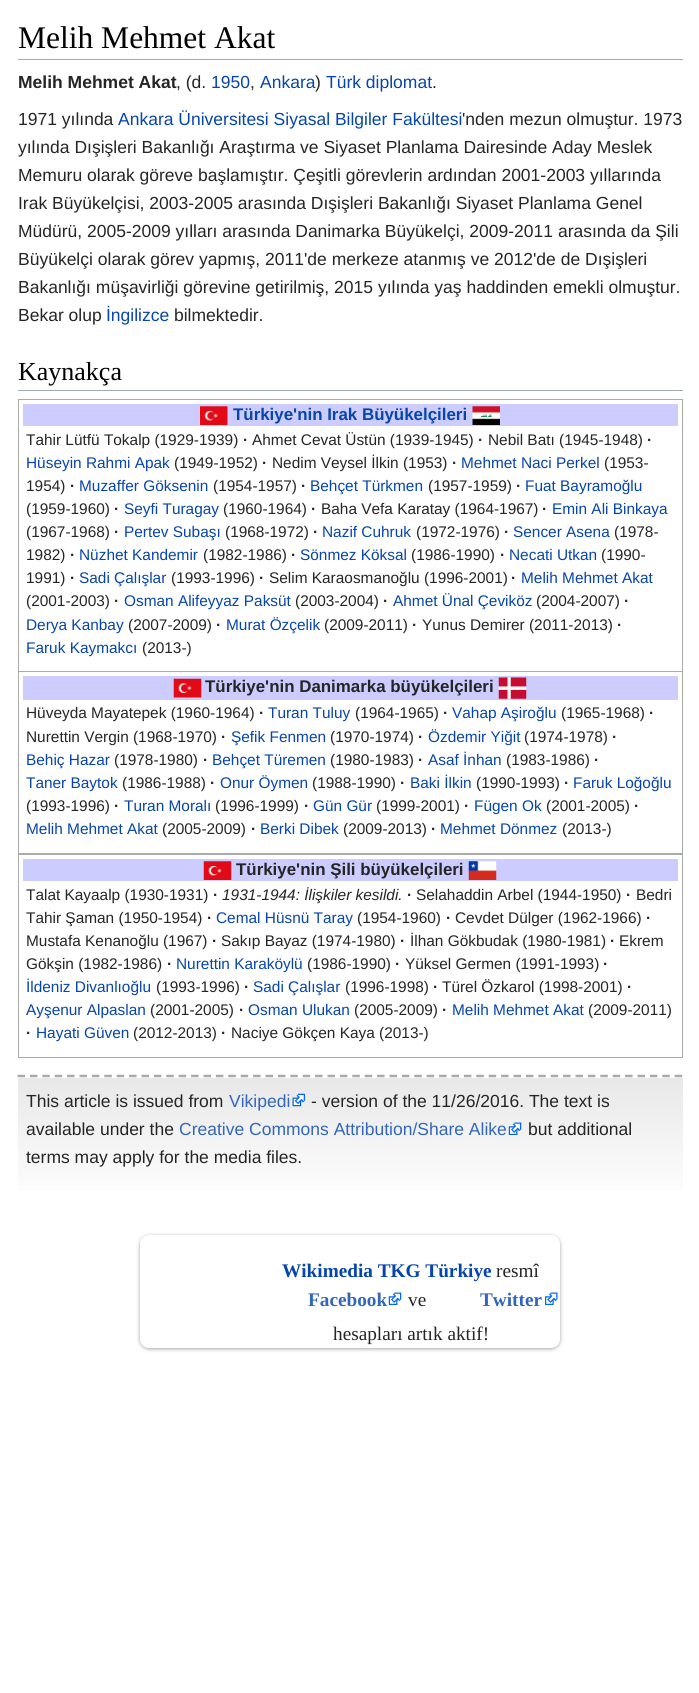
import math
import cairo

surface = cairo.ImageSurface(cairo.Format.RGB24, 699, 1693)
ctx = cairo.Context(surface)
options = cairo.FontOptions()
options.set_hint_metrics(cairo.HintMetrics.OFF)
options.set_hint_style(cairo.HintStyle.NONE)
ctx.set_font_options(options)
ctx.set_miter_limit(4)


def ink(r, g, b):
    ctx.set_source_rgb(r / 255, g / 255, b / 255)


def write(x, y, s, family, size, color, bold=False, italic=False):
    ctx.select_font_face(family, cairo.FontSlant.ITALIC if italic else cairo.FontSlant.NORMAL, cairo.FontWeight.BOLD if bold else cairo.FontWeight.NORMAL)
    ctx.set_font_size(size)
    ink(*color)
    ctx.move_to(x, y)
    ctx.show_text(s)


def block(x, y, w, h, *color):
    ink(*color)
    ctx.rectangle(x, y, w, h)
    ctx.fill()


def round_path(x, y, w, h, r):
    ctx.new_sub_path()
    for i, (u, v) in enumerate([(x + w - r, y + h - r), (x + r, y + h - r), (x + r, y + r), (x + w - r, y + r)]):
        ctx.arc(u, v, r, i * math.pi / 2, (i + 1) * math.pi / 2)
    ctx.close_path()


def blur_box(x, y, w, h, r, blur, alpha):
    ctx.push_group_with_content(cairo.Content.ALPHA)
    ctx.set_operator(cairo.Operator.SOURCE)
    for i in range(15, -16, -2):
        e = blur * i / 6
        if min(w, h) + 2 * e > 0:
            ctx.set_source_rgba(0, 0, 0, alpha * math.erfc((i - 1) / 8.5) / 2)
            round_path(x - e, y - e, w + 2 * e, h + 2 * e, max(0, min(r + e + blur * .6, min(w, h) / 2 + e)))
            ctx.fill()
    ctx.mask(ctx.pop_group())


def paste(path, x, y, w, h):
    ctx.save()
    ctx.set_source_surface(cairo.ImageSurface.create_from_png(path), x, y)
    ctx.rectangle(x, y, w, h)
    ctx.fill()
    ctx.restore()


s1 = dict(family="Liberation Serif", size=31.5, color=(0, 0, 0))
s2 = dict(family="Liberation Sans", size=17.5, color=(37, 37, 37), bold=True)
s3 = dict(family="Liberation Sans", size=17.5, color=(37, 37, 37))
s4 = dict(family="Liberation Sans", size=17.5, color=(6, 69, 173))
s5 = dict(family="Liberation Serif", size=26, color=(0, 0, 0))
s6 = dict(family="Liberation Sans", size=16.9, color=(6, 69, 173), bold=True)
s7 = dict(family="Liberation Sans", size=15.4, color=(37, 37, 37))
s8 = dict(family="Liberation Sans", size=15.4, color=(37, 37, 37), bold=True)
s9 = dict(family="Liberation Sans", size=15.4, color=(6, 69, 173))
s10 = dict(family="Liberation Sans", size=16.9, color=(37, 37, 37), bold=True)
s11 = dict(family="Liberation Sans", size=15.4, color=(37, 37, 37), italic=True)
s12 = dict(family="Liberation Sans", size=17.5, color=(51, 102, 187))
s13 = dict(family="Liberation Serif", size=19.25, color=(6, 69, 173), bold=True)
s14 = dict(family="Liberation Serif", size=19.25, color=(37, 37, 37))
s15 = dict(family="Liberation Serif", size=19.25, color=(51, 102, 187), bold=True)

ink(255, 255, 255)
ctx.paint()
block(18, 59, 665, 1, 162, 169, 177)
write(18, 48, "Melih Mehmet Akat", **s1)
write(18, 88, "Melih Mehmet Akat", **s2)
write(176, 88, ", (d.", **s3)
write(211, 88, "1950", **s4)
write(250, 88, ",", **s3)
write(260, 88, "Ankara", **s4)
write(315, 88, ")", **s3)
write(326, 88, "Türk diplomat", **s4)
write(432, 88, ".", **s3)
write(18, 125, "1971 yılında", **s3)
write(118, 125, "Ankara Üniversitesi Siyasal Bilgiler Fakültesi", **s4)
write(462, 125, "'nden mezun olmuştur. 1973", **s3)
write(18, 153, "yılında Dışişleri Bakanlığı Araştırma ve Siyaset Planlama Dairesinde Aday Meslek", **s3)
write(18, 181, "Memuru olarak göreve başlamıştır. Çeşitli görevlerin ardından 2001-2003 yıllarında", **s3)
write(18, 209, "Irak Büyükelçisi, 2003-2005 arasında Dışişleri Bakanlığı Siyaset Planlama Genel", **s3)
write(18, 237, "Müdürü, 2005-2009 yılları arasında Danimarka Büyükelçi, 2009-2011 arasında da Şili", **s3)
write(18, 265, "Büyükelçi olarak görev yapmış, 2011'de merkeze atanmış ve 2012'de de Dışişleri", **s3)
write(18, 293, "Bakanlığı müşavirliği görevine getirilmiş, 2015 yılında yaş haddinden emekli olmuştur.", **s3)
write(18, 321, "Bekar olup", **s3)
write(106, 321, "İngilizce", **s4)
write(174, 321, "bilmektedir.", **s3)
block(18, 390, 665, 1, 162, 169, 177)
write(18, 380, "Kaynakça", **s5)
ctx.rectangle(18.5, 399.5, 664, 273)
ink(170, 170, 170)
ctx.set_line_width(1)
ctx.stroke()
block(23, 404, 655, 22, 204, 204, 255)
paste("pic1.png", 200, 406, 28, 19)
write(233, 420, "Türkiye'nin Irak Büyükelçileri", **s6)
paste("pic2.png", 472, 406, 28, 19)
write(26, 445, "Tahir Lütfü Tokalp (1929-1939)", **s7)
write(243, 445, "·", **s8)
write(252, 445, "Ahmet Cevat Üstün (1939-1945)", **s7)
write(478, 445, "·", **s8)
write(488, 445, "Nebil Batı (1945-1948)", **s7)
write(647, 445, "·", **s8)
write(26, 468, "Hüseyin Rahmi Apak", **s9)
write(174, 468, "(1949-1952)", **s7)
write(262, 468, "·", **s8)
write(272, 468, "Nedim Veysel İlkin (1953)", **s7)
write(452, 468, "·", **s8)
write(461, 468, "Mehmet Naci Perkel", **s9)
write(604, 468, "(1953-", **s7)
write(26, 491, "1954)", **s7)
write(70, 491, "·", **s8)
write(79, 491, "Muzaffer Göksenin", **s9)
write(213, 491, "(1954-1957)", **s7)
write(301, 491, "·", **s8)
write(310, 491, "Behçet Türkmen", **s9)
write(428, 491, "(1957-1959)", **s7)
write(516, 491, "·", **s8)
write(525, 491, "Fuat Bayramoğlu", **s9)
write(26, 514, "(1959-1960)", **s7)
write(114, 514, "·", **s8)
write(124, 514, "Seyfi Turagay", **s9)
write(223, 514, "(1960-1964)", **s7)
write(311, 514, "·", **s8)
write(321, 514, "Baha Vefa Karatay (1964-1967)", **s7)
write(542, 514, "·", **s8)
write(552, 514, "Emin Ali Binkaya", **s9)
write(26, 537, "(1967-1968)", **s7)
write(114, 537, "·", **s8)
write(124, 537, "Pertev Subaşı", **s9)
write(225, 537, "(1968-1972)", **s7)
write(313, 537, "·", **s8)
write(322, 537, "Nazif Cuhruk", **s9)
write(416, 537, "(1972-1976)", **s7)
write(504, 537, "·", **s8)
write(513, 537, "Sencer Asena", **s9)
write(614, 537, "(1978-", **s7)
write(26, 560, "1982)", **s7)
write(70, 560, "·", **s8)
write(79, 560, "Nüzhet Kandemir", **s9)
write(203, 560, "(1982-1986)", **s7)
write(291, 560, "·", **s8)
write(300, 560, "Sönmez Köksal", **s9)
write(411, 560, "(1986-1990)", **s7)
write(500, 560, "·", **s8)
write(509, 560, "Necati Utkan", **s9)
write(601, 560, "(1990-", **s7)
write(26, 583, "1991)", **s7)
write(70, 583, "·", **s8)
write(79, 583, "Sadi Çalışlar", **s9)
write(171, 583, "(1993-1996)", **s7)
write(259, 583, "·", **s8)
write(269, 583, "Selim Karaosmanoğlu (1996-2001)", **s7)
write(511, 583, "·", **s8)
write(521, 583, "Melih Mehmet Akat", **s9)
write(26, 606, "(2001-2003)", **s7)
write(114, 606, "·", **s8)
write(124, 606, "Osman Alifeyyaz Paksüt", **s9)
write(295, 606, "(2003-2004)", **s7)
write(383, 606, "·", **s8)
write(393, 606, "Ahmet Ünal Çeviköz", **s9)
write(536, 606, "(2004-2007)", **s7)
write(624, 606, "·", **s8)
write(26, 630, "Derya Kanbay", **s9)
write(128, 630, "(2007-2009)", **s7)
write(216, 630, "·", **s8)
write(226, 630, "Murat Özçelik", **s9)
write(324, 630, "(2009-2011)", **s7)
write(412, 630, "·", **s8)
write(422, 630, "Yunus Demirer (2011-2013)", **s7)
write(617, 630, "·", **s8)
write(26, 653, "Faruk Kaymakcı", **s9)
write(142, 653, "(2013-)", **s7)
block(19, 672, 663, 1, 253, 253, 253)
ctx.rectangle(18.5, 671.5, 664, 182)
ink(170, 170, 170)
ctx.stroke()
block(23, 676, 655, 24, 204, 204, 255)
paste("pic3.png", 173, 678, 29, 20)
write(205, 692, "Türkiye'nin Danimarka büyükelçileri", **s10)
paste("pic4.png", 498, 677, 29, 22)
write(26, 718, "Hüveyda Mayatepek (1960-1964)", **s7)
write(259, 718, "·", **s8)
write(268, 718, "Turan Tuluy", **s9)
write(355, 718, "(1964-1965)", **s7)
write(443, 718, "·", **s8)
write(452, 718, "Vahap Aşiroğlu", **s9)
write(561, 718, "(1965-1968)", **s7)
write(649, 718, "·", **s8)
write(26, 742, "Nurettin Vergin (1968-1970)", **s7)
write(221, 742, "·", **s8)
write(231, 742, "Şefik Fenmen", **s9)
write(330, 742, "(1970-1974)", **s7)
write(418, 742, "·", **s8)
write(428, 742, "Özdemir Yiğit", **s9)
write(524, 742, "(1974-1978)", **s7)
write(612, 742, "·", **s8)
write(26, 765, "Behiç Hazar", **s9)
write(114, 765, "(1978-1980)", **s7)
write(203, 765, "·", **s8)
write(212, 765, "Behçet Türemen", **s9)
write(330, 765, "(1980-1983)", **s7)
write(418, 765, "·", **s8)
write(428, 765, "Asaf İnhan", **s9)
write(506, 765, "(1983-1986)", **s7)
write(594, 765, "·", **s8)
write(26, 788, "Taner Baytok", **s9)
write(122, 788, "(1986-1988)", **s7)
write(210, 788, "·", **s8)
write(220, 788, "Onur Öymen", **s9)
write(312, 788, "(1988-1990)", **s7)
write(400, 788, "·", **s8)
write(410, 788, "Baki İlkin", **s9)
write(476, 788, "(1990-1993)", **s7)
write(564, 788, "·", **s8)
write(573, 788, "Faruk Loğoğlu", **s9)
write(26, 811, "(1993-1996)", **s7)
write(114, 811, "·", **s8)
write(124, 811, "Turan Moralı", **s9)
write(215, 811, "(1996-1999)", **s7)
write(304, 811, "·", **s8)
write(313, 811, "Gün Gür", **s9)
write(376, 811, "(1999-2001)", **s7)
write(464, 811, "·", **s8)
write(474, 811, "Fügen Ok", **s9)
write(546, 811, "(2001-2005)", **s7)
write(634, 811, "·", **s8)
write(26, 834, "Melih Mehmet Akat", **s9)
write(162, 834, "(2005-2009)", **s7)
write(251, 834, "·", **s8)
write(260, 834, "Berki Dibek", **s9)
write(343, 834, "(2009-2013)", **s7)
write(431, 834, "·", **s8)
write(440, 834, "Mehmet Dönmez", **s9)
write(562, 834, "(2013-)", **s7)
ctx.rectangle(18.5, 854.5, 664, 203)
ink(170, 170, 170)
ctx.stroke()
block(23, 859, 655, 22, 204, 204, 255)
paste("pic5.png", 203, 861, 29, 19)
write(236, 875, "Türkiye'nin Şili büyükelçileri", **s10)
paste("pic6.png", 468, 861, 29, 19)
write(26, 900, "Talat Kayaalp (1930-1931)", **s7)
write(213, 900, "·", **s8)
write(222, 900, "1931-1944: İlişkiler kesildi.", **s11)
write(407, 900, "·", **s8)
write(416, 900, "Selahaddin Arbel (1944-1950)", **s7)
write(626, 900, "·", **s8)
write(636, 900, "Bedri", **s7)
write(26, 923, "Tahir Şaman (1950-1954)", **s7)
write(207, 923, "·", **s8)
write(216, 923, "Cemal Hüsnü Taray", **s9)
write(357, 923, "(1954-1960)", **s7)
write(446, 923, "·", **s8)
write(455, 923, "Cevdet Dülger (1962-1966)", **s7)
write(646, 923, "·", **s8)
write(26, 946, "Mustafa Kenanoğlu (1967)", **s7)
write(212, 946, "·", **s8)
write(221, 946, "Sakıp Bayaz (1974-1980)", **s7)
write(400, 946, "·", **s8)
write(410, 946, "İlhan Gökbudak (1980-1981)", **s7)
write(610, 946, "·", **s8)
write(619, 946, "Ekrem", **s7)
write(26, 969, "Gökşin (1982-1986)", **s7)
write(167, 969, "·", **s8)
write(176, 969, "Nurettin Karaköylü", **s9)
write(307, 969, "(1986-1990)", **s7)
write(395, 969, "·", **s8)
write(405, 969, "Yüksel Germen (1991-1993)", **s7)
write(603, 969, "·", **s8)
write(26, 992, "İldeniz Divanlıoğlu", **s9)
write(156, 992, "(1993-1996)", **s7)
write(244, 992, "·", **s8)
write(253, 992, "Sadi Çalışlar", **s9)
write(345, 992, "(1996-1998)", **s7)
write(433, 992, "·", **s8)
write(442, 992, "Türel Özkarol (1998-2001)", **s7)
write(627, 992, "·", **s8)
write(26, 1015, "Ayşenur Alpaslan", **s9)
write(150, 1015, "(2001-2005)", **s7)
write(239, 1015, "·", **s8)
write(248, 1015, "Osman Ulukan", **s9)
write(354, 1015, "(2005-2009)", **s7)
write(442, 1015, "·", **s8)
write(452, 1015, "Melih Mehmet Akat", **s9)
write(588, 1015, "(2009-2011)", **s7)
write(26, 1038, "·", **s8)
write(36, 1038, "Hayati Güven", **s9)
write(133, 1038, "(2012-2013)", **s7)
write(221, 1038, "·", **s8)
write(231, 1038, "Naciye Gökçen Kaya (2013-)", **s7)
gradient = cairo.LinearGradient(350, 1078, 350, 1205)
gradient.add_color_stop_rgba(0, 0.91, 0.91, 0.91, 1)
gradient.add_color_stop_rgba(1, 1, 1, 1, 1)
ctx.set_source(gradient)
ctx.rectangle(18, 1078, 665, 113)
ctx.fill()
ctx.new_path()
ctx.move_to(17.5, 1076)
ctx.line_to(682.5, 1076)
ink(170, 170, 170)
ctx.set_line_width(2.5)
ctx.set_dash([7.5, 4.9])
ctx.stroke()
write(26, 1107, "This article is issued from", **s3)
write(229, 1107, "Vikipedi", **s12)
paste("pic7.png", 292, 1093, 13, 14)
write(311, 1107, "- version of the 11/26/2016. The text is", **s3)
write(26, 1135, "available under the", **s3)
write(179, 1135, "Creative Commons Attribution/Share Alike", **s12)
paste("pic8.png", 508, 1122, 14, 13)
write(528, 1135, "but additional", **s3)
write(26, 1163, "terms may apply for the media files.", **s3)
ink(0, 0, 0)
blur_box(140, 1236, 420, 113, 9, 2, 0.35)
ink(255, 255, 255)
round_path(140, 1235, 420, 113, 9)
ctx.fill()
write(282, 1277, "Wikimedia TKG Türkiye", **s13)
write(496, 1277, "resmî", **s14)
write(308, 1306, "Facebook", **s15)
paste("pic9.png", 388, 1292, 14, 13)
write(408, 1306, "ve", **s14)
write(480, 1306, "Twitter", **s15)
paste("pic10.png", 545, 1292, 13, 13)
write(333, 1340, "hesapları artık aktif!", **s14)
surface.write_to_png("screenshot.png")
